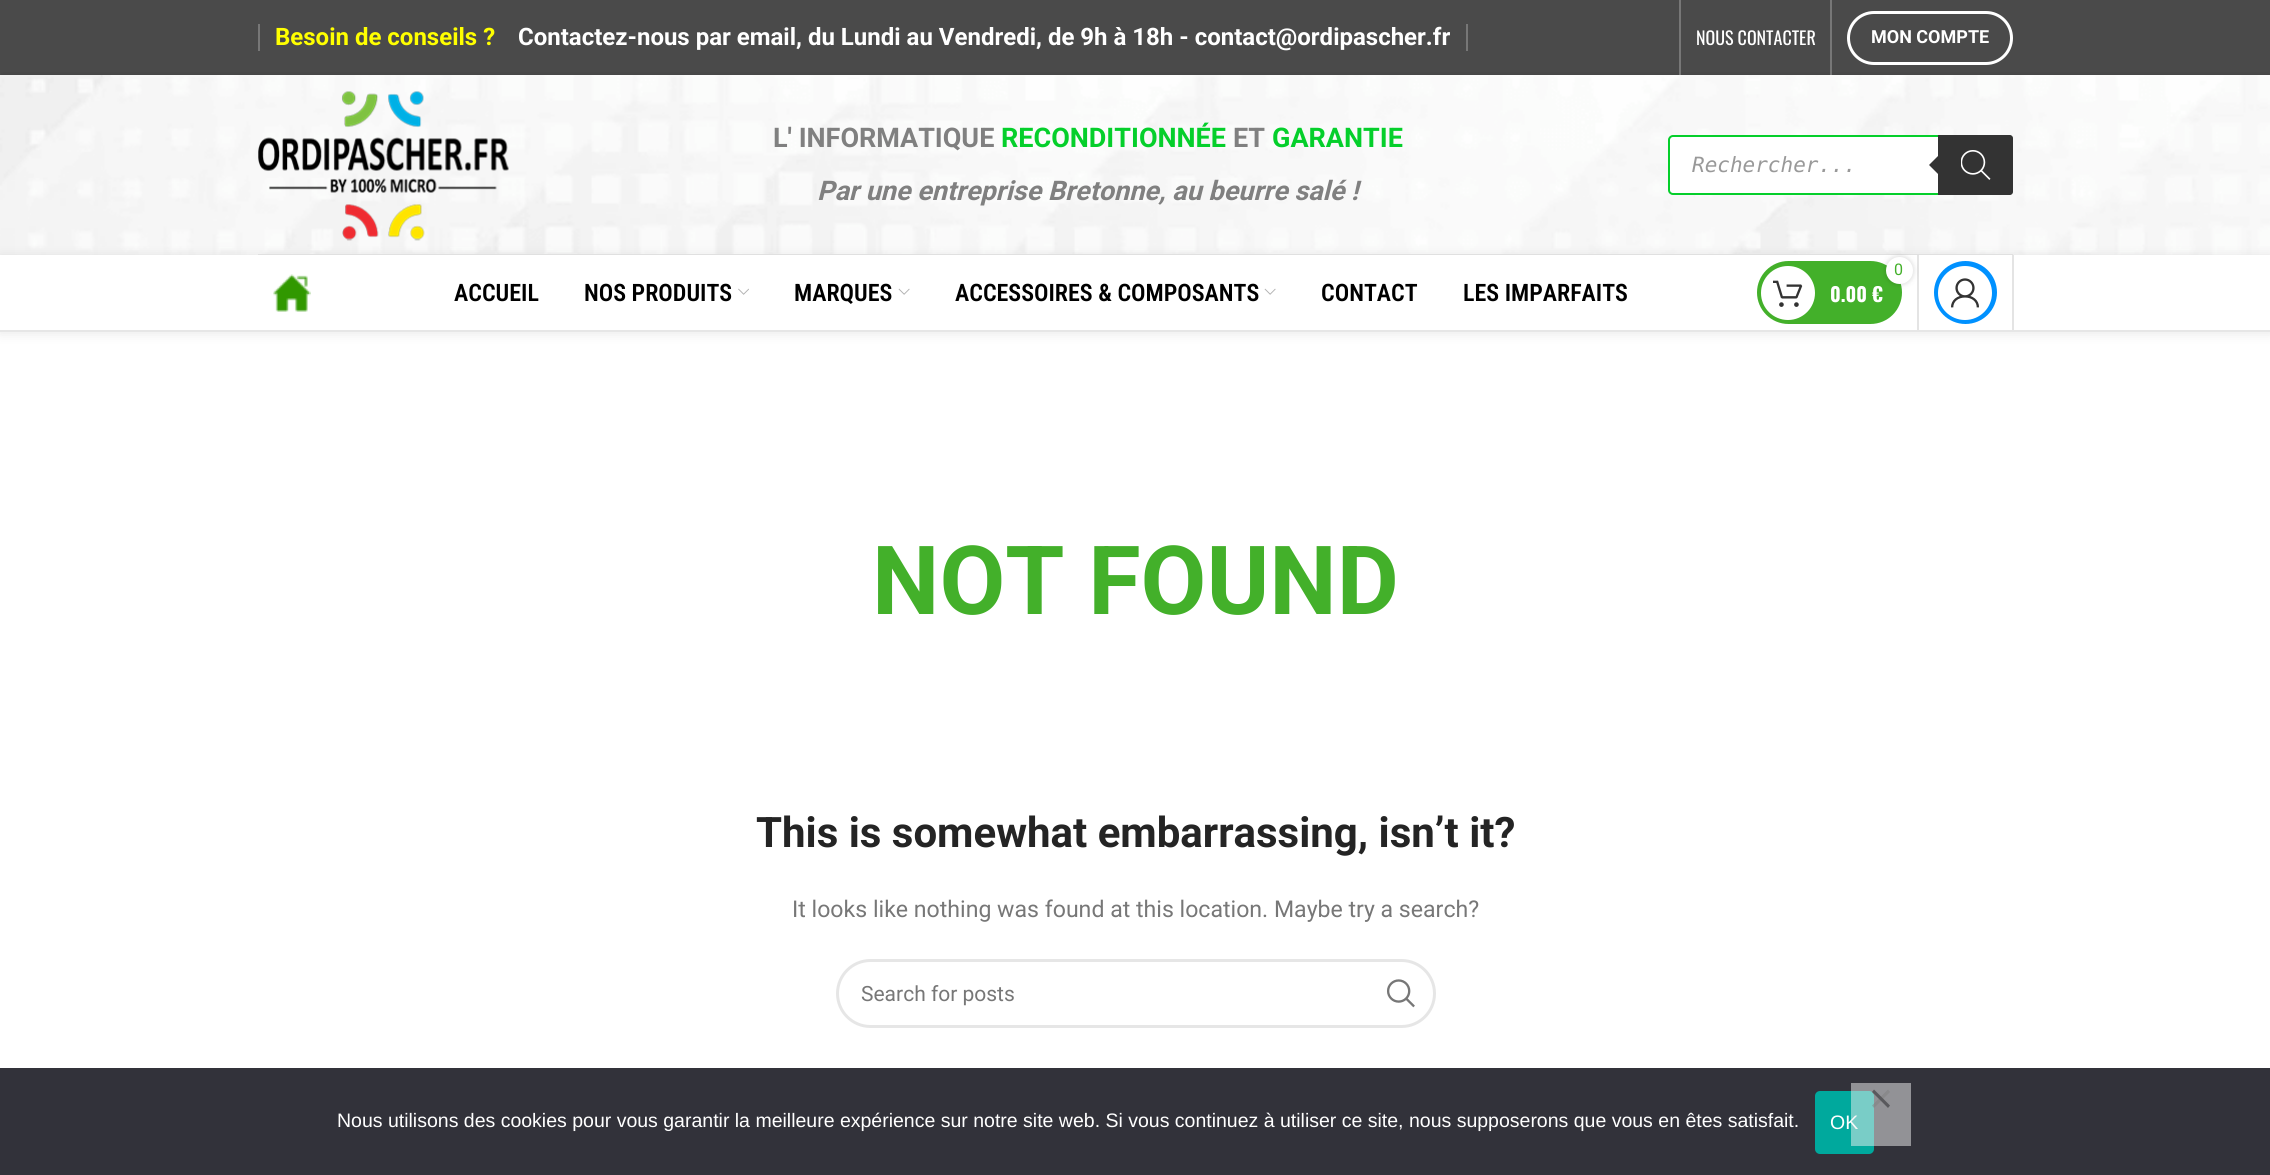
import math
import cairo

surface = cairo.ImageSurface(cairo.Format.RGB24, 2270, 1175)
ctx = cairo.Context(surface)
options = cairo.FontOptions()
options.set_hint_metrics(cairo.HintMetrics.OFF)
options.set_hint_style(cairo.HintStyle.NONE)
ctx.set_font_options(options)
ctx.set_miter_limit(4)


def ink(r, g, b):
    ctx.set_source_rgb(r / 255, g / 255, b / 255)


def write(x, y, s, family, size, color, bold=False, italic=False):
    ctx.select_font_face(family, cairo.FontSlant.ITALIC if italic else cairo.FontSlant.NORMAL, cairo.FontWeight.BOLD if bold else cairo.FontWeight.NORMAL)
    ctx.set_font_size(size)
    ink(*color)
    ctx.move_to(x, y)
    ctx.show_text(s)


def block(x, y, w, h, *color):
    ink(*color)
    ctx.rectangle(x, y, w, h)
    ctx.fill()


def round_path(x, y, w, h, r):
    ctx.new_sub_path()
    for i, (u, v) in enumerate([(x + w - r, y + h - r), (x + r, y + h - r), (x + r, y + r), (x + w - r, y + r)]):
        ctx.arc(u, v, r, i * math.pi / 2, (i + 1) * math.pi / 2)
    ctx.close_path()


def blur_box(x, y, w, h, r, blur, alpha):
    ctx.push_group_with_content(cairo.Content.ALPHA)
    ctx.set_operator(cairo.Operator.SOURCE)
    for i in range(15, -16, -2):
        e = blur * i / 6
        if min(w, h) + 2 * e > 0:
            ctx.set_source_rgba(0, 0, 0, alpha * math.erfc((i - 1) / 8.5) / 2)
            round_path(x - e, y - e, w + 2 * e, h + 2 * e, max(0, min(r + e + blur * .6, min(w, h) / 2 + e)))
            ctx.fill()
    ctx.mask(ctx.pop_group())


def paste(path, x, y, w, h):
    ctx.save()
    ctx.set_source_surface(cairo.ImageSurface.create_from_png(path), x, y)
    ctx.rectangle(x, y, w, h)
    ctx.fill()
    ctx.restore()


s1 = dict(family="Roboto", size=24, color=(255, 255, 0), bold=True)
s2 = dict(family="Roboto", size=24, color=(255, 255, 255), bold=True)
s3 = dict(family="Oswald", size=18, color=(255, 255, 255))
s4 = dict(family="Roboto", size=18, color=(255, 255, 255), bold=True)
s5 = dict(family="Roboto", size=27, color=(128, 128, 128), bold=True)
s6 = dict(family="Roboto", size=27, color=(5, 207, 43), bold=True)
s7 = dict(family="Roboto", size=27, color=(128, 128, 128), bold=True, italic=True)
s8 = dict(family="DejaVu Sans Mono", size=21, color=(153, 153, 153), italic=True)
s9 = dict(family="Roboto Condensed SemiBold", size=24, color=(0, 0, 0))
s10 = dict(family="Roboto", size=16, color=(67, 176, 42))
s11 = dict(family="Oswald", size=19.5, color=(255, 255, 255), bold=True)
s12 = dict(family="Roboto", size=95.5, color=(67, 176, 42), bold=True)
s13 = dict(family="Roboto", size=42, color=(36, 36, 36), bold=True)
s14 = dict(family="Roboto", size=23.1, color=(119, 119, 119))
s15 = dict(family="Roboto", size=21, color=(119, 119, 119))
s16 = dict(family="Liberation Sans", size=19.5, color=(255, 255, 255))

ink(255, 255, 255)
ctx.paint()
block(0, 0, 2270, 75, 74, 74, 74)
block(258, 24, 2, 27, 119, 119, 119)
write(275, 45, "Besoin de conseils ?", **s1)
write(518, 45, "Contactez-nous par email, du Lundi au Vendredi, de 9h à 18h - contact@ordipascher.fr", **s2)
block(1466, 24, 2, 27, 119, 119, 119)
ctx.save()
ctx.rectangle(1, 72, 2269, 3)
ctx.clip()
ink(0, 0, 0)
blur_box(0, 77, 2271, 180, 0, 6, 0.1)
ctx.restore()
ctx.set_source_rgba(1, 1, 1, 0.25)
ctx.rectangle(1679, 0, 2, 75)
ctx.fill()
write(1696, 45, "NOUS CONTACTER", **s3)
ctx.set_source_rgba(1, 1, 1, 0.25)
ctx.rectangle(1830, 0, 2, 75)
ctx.fill()
round_path(1848.5, 12.5, 163, 51, 25.5)
ink(255, 255, 255)
ctx.set_line_width(3)
ctx.stroke()
write(1871, 43, "MON COMPTE", **s4)
paste("pic1.png", 0, 75, 2270, 180)
block(258, 254, 1755, 1, 232, 232, 232)
ink(0, 0, 0)
blur_box(0, 257, 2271, 76, 0, 6, 0.1)
paste("pic2.png", 258, 91, 251, 150)
write(773, 147, "L' INFORMATIQUE", **s5)
write(1001, 147, "RECONDITIONNÉE", **s6)
write(1233, 147, "ET", **s5)
write(1272, 147, "GARANTIE", **s6)
write(817, 200, "Par une entreprise Bretonne, au beurre salé !", **s7)
ink(255, 255, 255)
round_path(1669, 136, 343, 58, 4)
ctx.fill_preserve()
ink(5, 207, 43)
ctx.set_line_width(2)
ctx.stroke()
write(1692, 172, "Rechercher...", **s8)
ink(51, 51, 51)
ctx.new_path()
ctx.move_to(1938, 135)
ctx.line_to(2010, 135)
ctx.curve_to(2011.5, 135, 2013, 136.5, 2013, 138)
ctx.line_to(2013, 192)
ctx.curve_to(2013, 193.5, 2011.5, 195, 2010, 195)
ctx.line_to(1938, 195)
ctx.close_path()
ctx.fill()
ctx.new_path()
ctx.move_to(1941, 153)
ctx.line_to(1941, 177)
ctx.line_to(1929, 165)
ctx.close_path()
ctx.fill()
paste("pic3.png", 1961, 150, 30, 30)
block(0, 255, 2270, 75, 255, 255, 255)
block(0, 330, 2270, 2, 230, 230, 230)
paste("pic4.png", 273, 274, 38, 38)
write(454, 301, "ACCUEIL", **s9)
write(584, 301, "NOS PRODUITS", **s9)
paste("pic5.png", 738, 288, 11, 7)
write(794, 301, "MARQUES", **s9)
paste("pic6.png", 898, 288, 12, 7)
write(955, 301, "ACCESSOIRES & COMPOSANTS", **s9)
paste("pic6.png", 1264, 288, 12, 7)
write(1321, 301, "CONTACT", **s9)
write(1463, 301, "LES IMPARFAITS", **s9)
ink(67, 176, 42)
round_path(1757, 261, 145, 63, 31.5)
ctx.fill()
ink(255, 255, 255)
ctx.arc(1788, 293, 27, 0, 2 * math.pi)
ctx.fill()
block(1917, 255, 2, 75, 228, 228, 228)
ink(0, 0, 0)
blur_box(1886, 257, 27, 27, 13.5, 3, 0.17)
ink(255, 255, 255)
ctx.arc(1899.5, 270.5, 13.5, 0, 2 * math.pi)
ctx.fill()
write(1894, 275, "0", **s10)
paste("pic7.png", 1773, 280, 30, 27)
write(1830, 302, "0.00 €", **s11)
ink(0, 145, 255)
ctx.new_path()
ctx.arc(1965.5, 292.5, 31.5, 0, 2 * math.pi)
ctx.fill()
ink(255, 255, 255)
ctx.arc(1965, 293, 27, 0, 2 * math.pi)
ctx.fill()
paste("pic8.png", 1951, 278, 28, 30)
block(2012, 255, 2, 75, 228, 228, 228)
write(872, 614, "NOT FOUND", **s12)
write(756, 847, "This is somewhat embarrassing, isn’t it?", **s13)
write(792, 917, "It looks like nothing was found at this location. Maybe try a search?", **s14)
round_path(837.5, 960.5, 597, 66, 33)
ink(230, 230, 230)
ctx.set_line_width(3)
ctx.stroke()
write(861, 1001, "Search for posts", **s15)
paste("pic9.png", 1387, 979, 28, 29)
block(0, 1068, 2270, 107, 50, 50, 58)
write(337, 1127, "Nous utilisons des cookies pour vous garantir la meilleure expérience sur notre site web. Si vous continuez à utiliser ce site, nous supposerons que vous en êtes satisfait.", **s16)
ink(0, 169, 157)
round_path(1815, 1091, 59, 63, 5)
ctx.fill()
write(1830, 1129, "OK", **s16)
ctx.set_source_rgba(0.953, 0.953, 0.953, 0.5)
ctx.rectangle(1851, 1083, 60, 63)
ctx.fill()
ctx.set_source_rgba(0.502, 0.502, 0.502, 0.5)
ctx.new_path()
ctx.move_to(1888, 1089.5)
ctx.line_to(1890, 1092)
ctx.line_to(1874, 1108)
ctx.line_to(1872, 1105.5)
ctx.close_path()
ctx.fill()
ink(89, 89, 93)
ctx.new_path()
ctx.move_to(1872, 1092)
ctx.line_to(1874, 1089.5)
ctx.line_to(1890, 1105.5)
ctx.line_to(1888, 1108)
ctx.close_path()
ctx.fill()
surface.write_to_png("screenshot.png")
